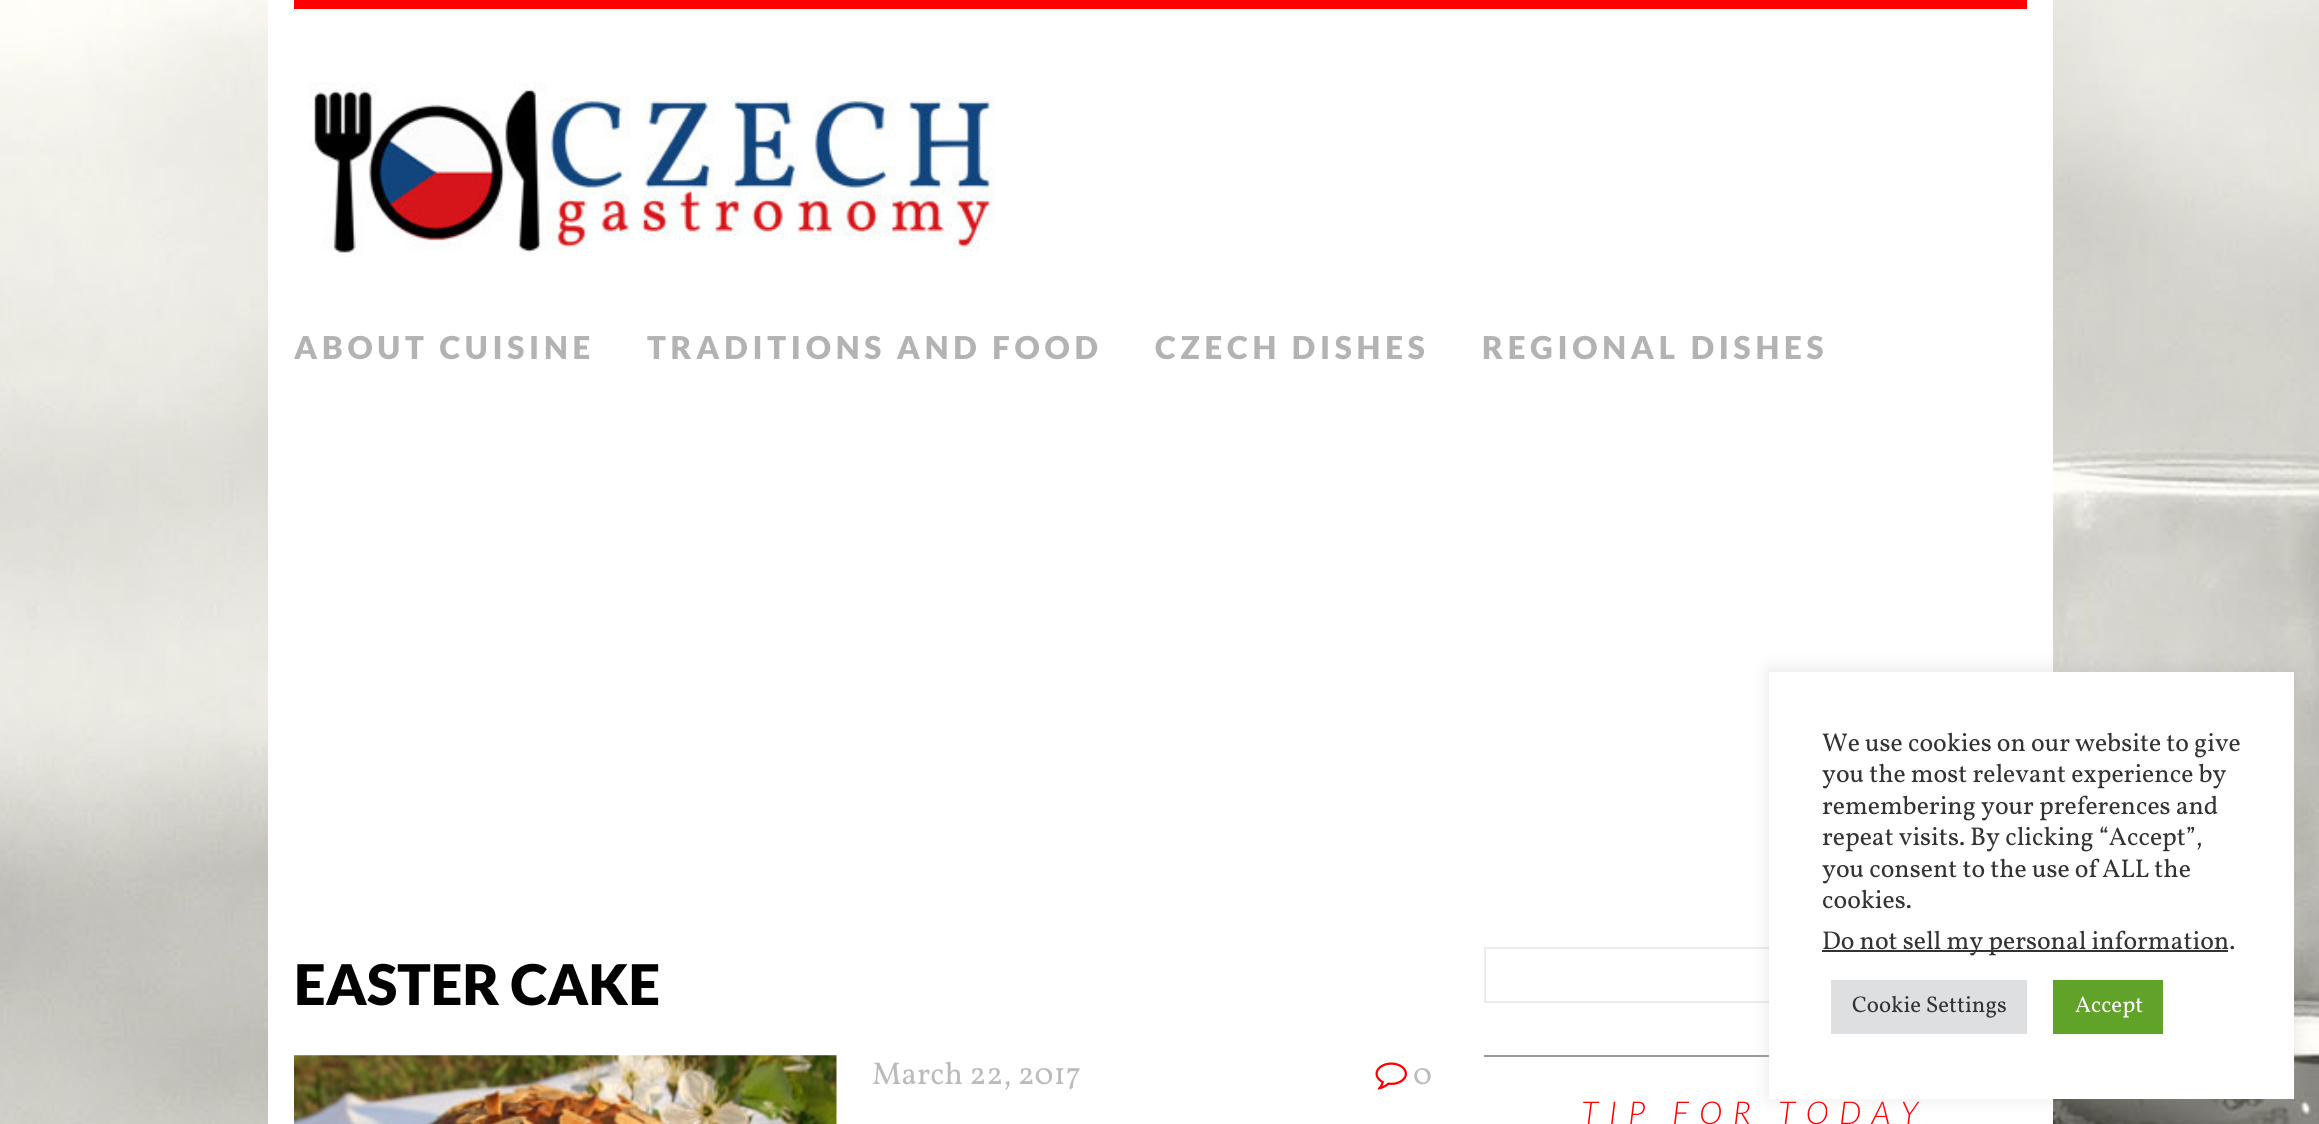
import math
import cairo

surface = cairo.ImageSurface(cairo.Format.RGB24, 2319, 1124)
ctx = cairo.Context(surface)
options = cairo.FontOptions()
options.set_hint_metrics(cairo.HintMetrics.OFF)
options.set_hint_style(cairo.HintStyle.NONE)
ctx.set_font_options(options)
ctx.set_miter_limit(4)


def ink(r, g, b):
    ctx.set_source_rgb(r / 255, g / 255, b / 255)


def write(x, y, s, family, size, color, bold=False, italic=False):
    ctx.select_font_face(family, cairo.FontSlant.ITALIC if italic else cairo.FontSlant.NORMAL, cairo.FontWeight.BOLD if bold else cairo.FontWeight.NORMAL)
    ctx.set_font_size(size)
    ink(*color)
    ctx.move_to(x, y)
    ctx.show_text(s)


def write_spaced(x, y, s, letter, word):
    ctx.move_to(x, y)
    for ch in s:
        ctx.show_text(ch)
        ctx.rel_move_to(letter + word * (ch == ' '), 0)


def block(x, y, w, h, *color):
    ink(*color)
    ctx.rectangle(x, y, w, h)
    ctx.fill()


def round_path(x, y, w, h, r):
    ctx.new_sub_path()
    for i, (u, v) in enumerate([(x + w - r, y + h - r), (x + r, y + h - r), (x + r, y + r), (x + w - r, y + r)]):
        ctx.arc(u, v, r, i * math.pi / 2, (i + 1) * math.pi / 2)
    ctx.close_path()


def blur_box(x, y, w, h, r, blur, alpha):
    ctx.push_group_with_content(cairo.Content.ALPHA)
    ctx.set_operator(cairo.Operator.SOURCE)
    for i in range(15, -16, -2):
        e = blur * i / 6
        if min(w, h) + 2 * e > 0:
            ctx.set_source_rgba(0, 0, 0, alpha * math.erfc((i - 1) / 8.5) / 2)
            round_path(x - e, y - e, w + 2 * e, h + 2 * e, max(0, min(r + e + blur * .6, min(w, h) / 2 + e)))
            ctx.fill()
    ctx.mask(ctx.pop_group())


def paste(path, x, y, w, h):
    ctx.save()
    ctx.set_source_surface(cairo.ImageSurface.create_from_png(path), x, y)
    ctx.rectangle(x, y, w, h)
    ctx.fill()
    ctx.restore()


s1 = dict(family="Lato Black", size=56, color=(0, 0, 0))
s2 = dict(family="Vollkorn", size=31.5, color=(187, 187, 187))
s3 = dict(family="Vollkorn", size=25.7, color=(51, 51, 51))
s4 = dict(family="Vollkorn", size=22.75, color=(51, 51, 51))
s5 = dict(family="Vollkorn", size=22.75, color=(255, 255, 255))

ink(255, 255, 255)
ctx.paint()
paste("pic1.png", 0, 0, 2319, 1124)
block(268, 0, 1785, 1124, 255, 255, 255)
block(294, 0, 1733, 9, 255, 0, 0)
paste("pic2.png", 308, 82, 687, 175)
ctx.select_font_face("Lato Black")
ctx.set_font_size(31.5)
ink(179, 179, 179)
write_spaced(294, 359, "ABOUT CUISINE", 4.75, 0)
write_spaced(647, 359, "TRADITIONS AND FOOD", 4.75, 0)
write_spaced(1155, 359, "CZECH DISHES", 4.75, 0)
write_spaced(1482, 359, "REGIONAL DISHES", 4.75, 0)
write(294, 1005, "EASTER CAKE", **s1)
paste("pic3.png", 294, 1055, 543, 69)
write(872, 1084, "March 22, 2017", **s2)
paste("pic4.png", 1375, 1062, 32, 28)
write(1413, 1084, "0", **s2)
ctx.rectangle(1485, 948, 544, 54)
ink(235, 235, 235)
ctx.stroke()
block(1484, 1055, 285, 2, 153, 153, 153)
ctx.select_font_face("Lato Light", cairo.FontSlant.ITALIC)
ink(255, 0, 0)
write_spaced(1581, 1124, "TIP FOR TODAY", 10.5, 0)
ink(172, 171, 171)
blur_box(1769, 670, 525, 427, 0, 9, 0.3)
block(1769, 672, 525, 427, 255, 255, 255)
write(1822, 751, "We use cookies on our website to give", **s3)
write(1822, 782, "you the most relevant experience by", **s3)
write(1822, 814, "remembering your preferences and", **s3)
write(1822, 845, "repeat visits. By clicking “Accept”,", **s3)
write(1822, 877, "you consent to the use of ALL the", **s3)
write(1822, 908, "cookies.", **s3)
block(1822, 950, 406, 2, 51, 51, 51)
write(1822, 949, "Do not sell my personal information.", **s3)
block(1831, 980, 196, 54, 222, 223, 224)
write(1852, 1012, "Cookie Settings", **s4)
block(2053, 980, 110, 54, 97, 162, 41)
write(2075, 1012, "Accept", **s5)
surface.write_to_png("screenshot.png")
